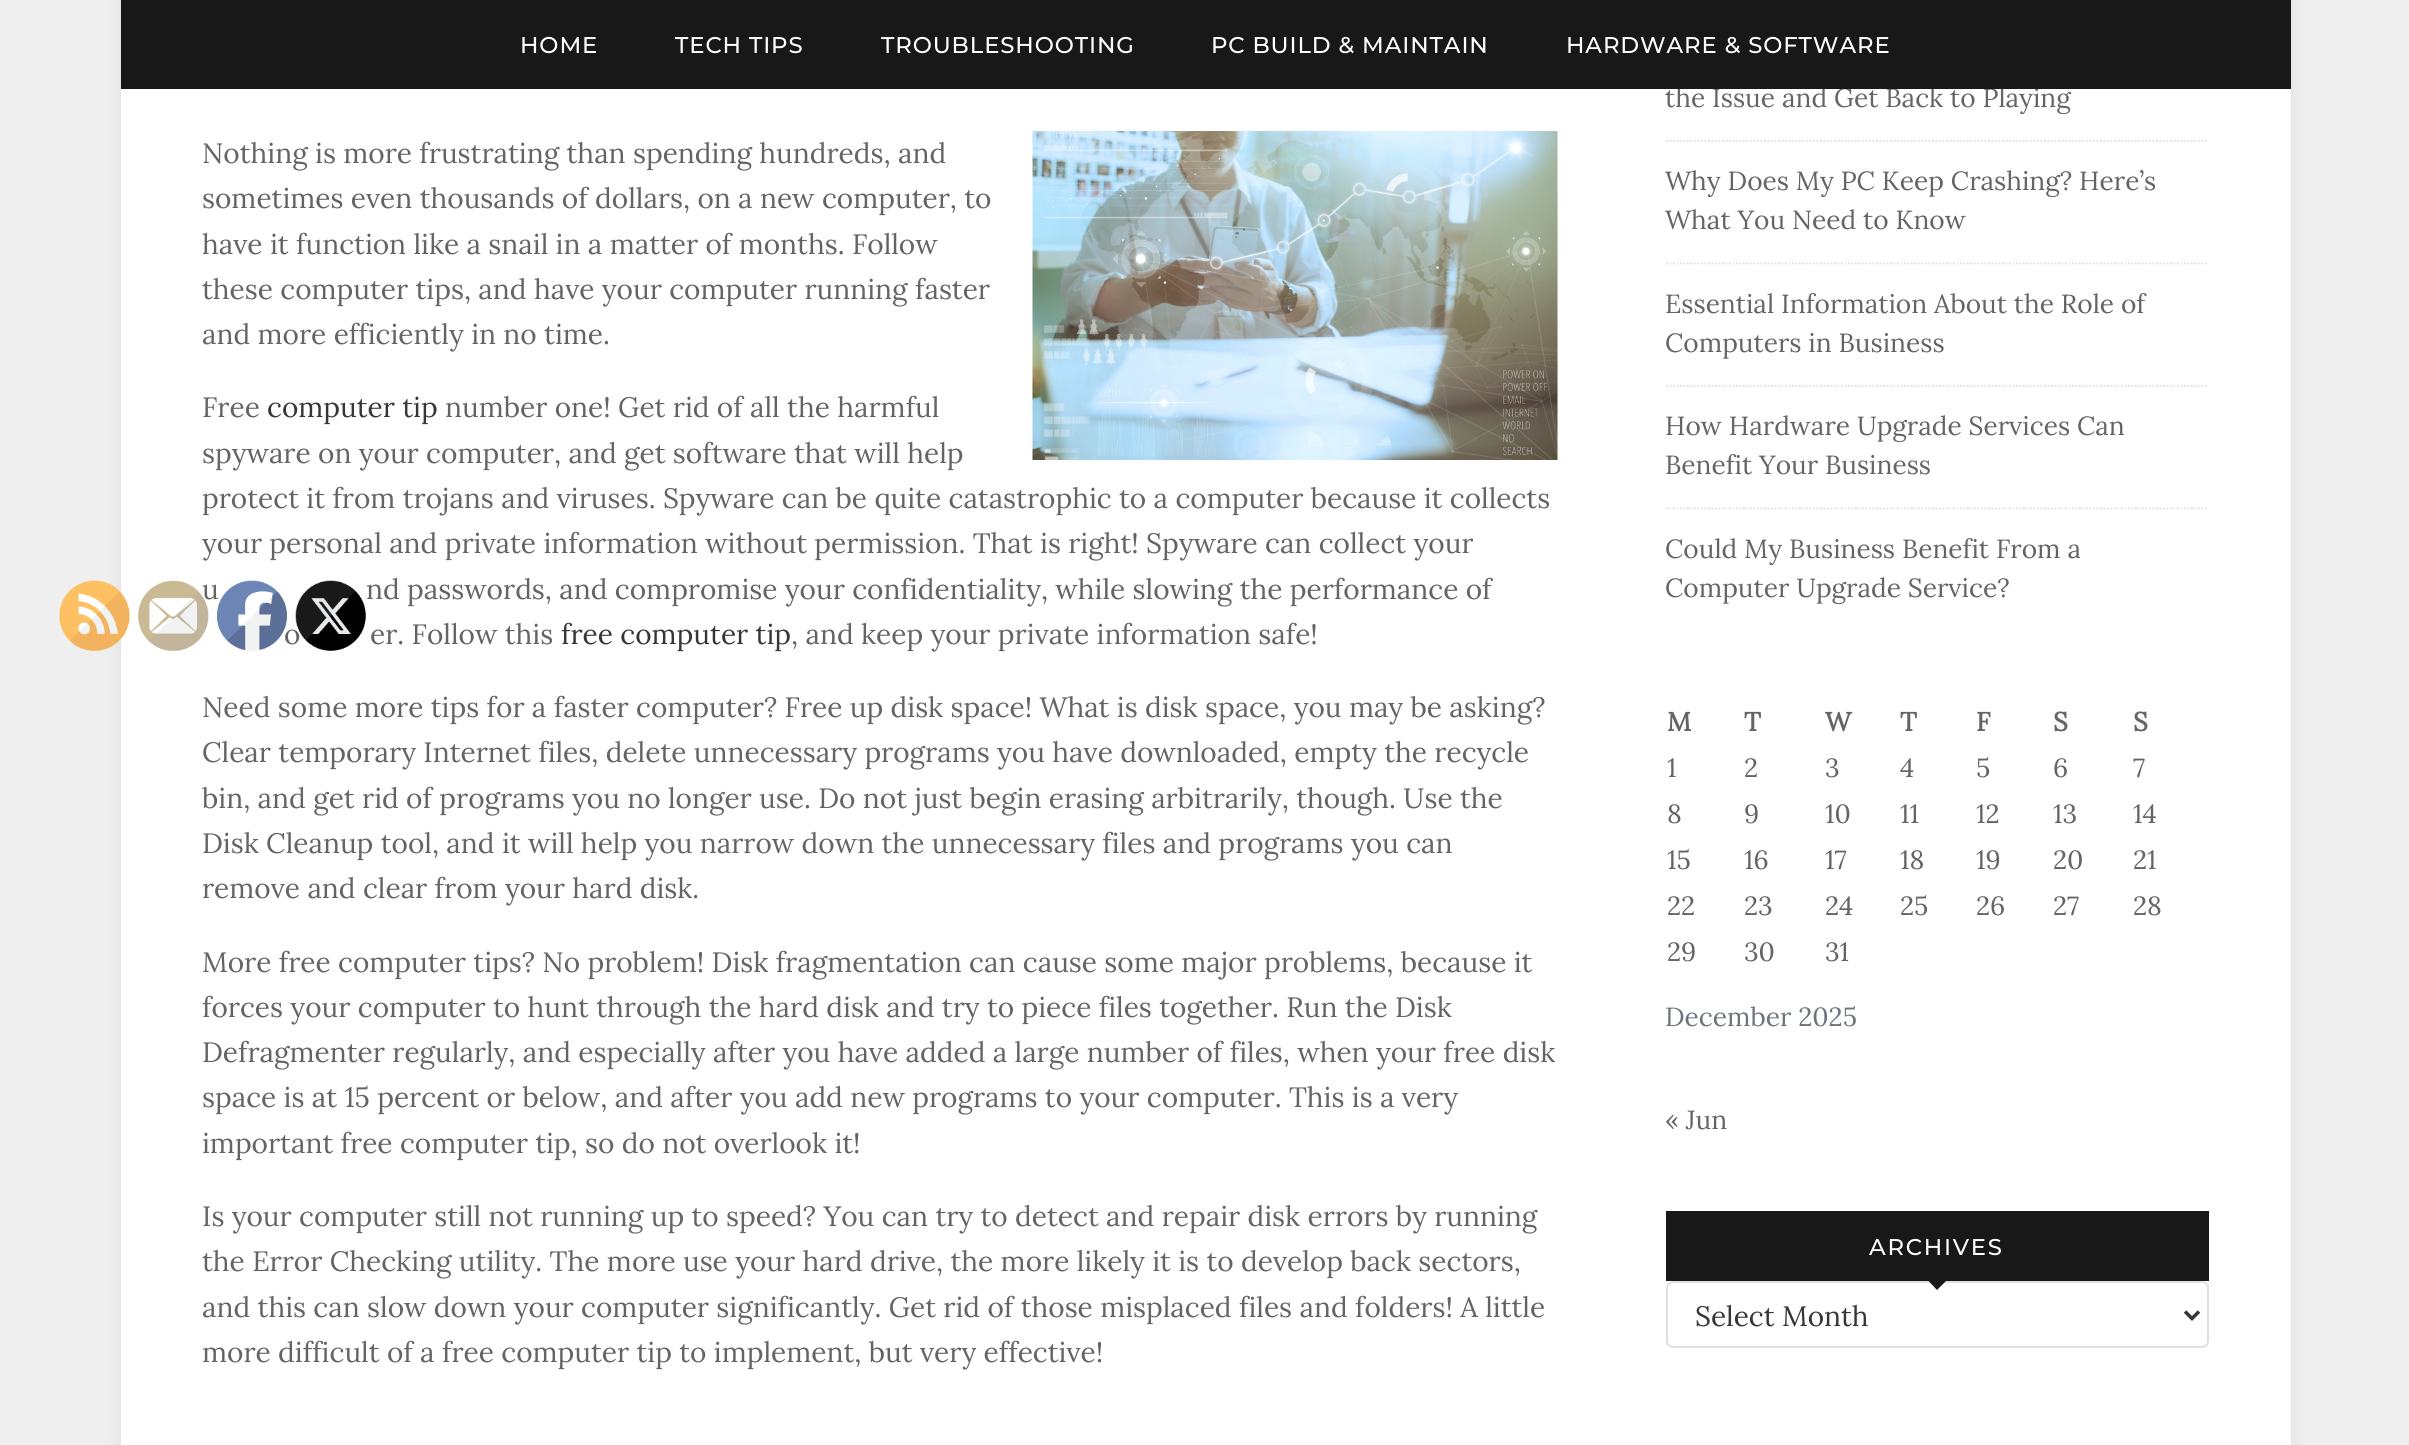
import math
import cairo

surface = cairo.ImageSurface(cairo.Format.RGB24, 2409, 1445)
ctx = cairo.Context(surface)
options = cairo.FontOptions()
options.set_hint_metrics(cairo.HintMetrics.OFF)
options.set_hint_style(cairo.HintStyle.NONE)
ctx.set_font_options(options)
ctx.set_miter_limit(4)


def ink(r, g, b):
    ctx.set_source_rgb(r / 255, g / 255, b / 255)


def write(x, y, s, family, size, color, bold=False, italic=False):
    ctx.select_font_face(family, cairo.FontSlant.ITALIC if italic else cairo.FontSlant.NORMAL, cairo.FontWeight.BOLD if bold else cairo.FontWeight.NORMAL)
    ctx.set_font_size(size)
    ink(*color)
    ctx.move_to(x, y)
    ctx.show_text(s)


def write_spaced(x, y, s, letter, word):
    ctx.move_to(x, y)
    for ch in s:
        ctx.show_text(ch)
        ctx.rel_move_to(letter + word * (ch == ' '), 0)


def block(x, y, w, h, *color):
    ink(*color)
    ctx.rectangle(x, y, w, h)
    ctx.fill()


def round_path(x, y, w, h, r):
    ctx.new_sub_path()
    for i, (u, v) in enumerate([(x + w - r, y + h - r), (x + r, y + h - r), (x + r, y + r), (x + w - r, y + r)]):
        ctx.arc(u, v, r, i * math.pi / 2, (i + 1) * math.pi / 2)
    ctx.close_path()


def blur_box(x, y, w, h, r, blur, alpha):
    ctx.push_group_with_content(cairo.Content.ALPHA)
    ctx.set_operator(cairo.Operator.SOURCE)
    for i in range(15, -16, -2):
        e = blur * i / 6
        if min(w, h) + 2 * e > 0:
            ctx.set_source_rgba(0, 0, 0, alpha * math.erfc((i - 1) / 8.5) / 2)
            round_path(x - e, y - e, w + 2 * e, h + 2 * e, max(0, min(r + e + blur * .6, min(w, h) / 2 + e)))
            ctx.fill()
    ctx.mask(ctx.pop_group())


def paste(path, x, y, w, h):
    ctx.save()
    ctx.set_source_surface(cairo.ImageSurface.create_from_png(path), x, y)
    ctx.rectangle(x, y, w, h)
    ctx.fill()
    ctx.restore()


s1 = dict(family="Lora", size=26.25, color=(100, 100, 100))
s2 = dict(family="Lora", size=28, color=(100, 100, 100))
s3 = dict(family="Lora", size=28, color=(54, 54, 54))
s4 = dict(family="Lora", size=26.25, color=(100, 100, 100), bold=True)
s5 = dict(family="Lora", size=26.25, color=(108, 117, 125))

ink(239, 239, 239)
ctx.paint()
ink(30, 30, 30)
blur_box(121, -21, 2170, 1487, 0, 7, 0.1)
block(121, 89, 2170, 1356, 255, 255, 255)
write(1665, 107, "the Issue and Get Back to Playing", **s1)
block(121, 0, 2170, 89, 24, 24, 24)
ctx.select_font_face("Montserrat Thin")
ctx.set_font_size(22.75)
ink(255, 255, 255)
write_spaced(520, 53, "HOME", 0.9, 0)
write_spaced(675, 53, "TECH TIPS", 0.9, 0)
write_spaced(881, 53, "TROUBLESHOOTING", 0.9, 0)
write_spaced(1211, 53, "PC BUILD & MAINTAIN", 0.9, 0)
write_spaced(1566, 53, "HARDWARE & SOFTWARE", 0.9, 0)
write(202, 163, "Nothing is more frustrating than spending hundreds, and", **s2)
write(202, 208, "sometimes even thousands of dollars, on a new computer, to", **s2)
write(202, 254, "have it function like a snail in a matter of months. Follow", **s2)
write(202, 299, "these computer tips, and have your computer running faster", **s2)
write(202, 344, "and more efficiently in no time.", **s2)
paste("pic1.png", 1032, 131, 526, 329)
write(202, 417, "Free", **s2)
write(267, 417, "computer tip", **s3)
write(445, 417, "number one! Get rid of all the harmful", **s2)
write(202, 463, "spyware on your computer, and get software that will help", **s2)
write(202, 508, "protect it from trojans and viruses. Spyware can be quite catastrophic to a computer because it collects", **s2)
write(202, 553, "your personal and private information without permission. That is right! Spyware can collect your", **s2)
write(202, 599, "u", **s2)
write(366, 599, "nd passwords, and compromise your confidentiality, while slowing the performance of", **s2)
write(284, 644, "o", **s2)
write(370, 644, "er. Follow this", **s2)
write(561, 644, "free computer tip", **s3)
write(791, 644, ", and keep your private information safe!", **s2)
write(202, 717, "Need some more tips for a faster computer? Free up disk space! What is disk space, you may be asking?", **s2)
write(202, 762, "Clear temporary Internet files, delete unnecessary programs you have downloaded, empty the recycle", **s2)
write(202, 808, "bin, and get rid of programs you no longer use. Do not just begin erasing arbitrarily, though. Use the", **s2)
write(202, 853, "Disk Cleanup tool, and it will help you narrow down the unnecessary files and programs you can", **s2)
write(202, 898, "remove and clear from your hard disk.", **s2)
write(202, 972, "More free computer tips? No problem! Disk fragmentation can cause some major problems, because it", **s2)
write(202, 1017, "forces your computer to hunt through the hard disk and try to piece files together. Run the Disk", **s2)
write(202, 1062, "Defragmenter regularly, and especially after you have added a large number of files, when your free disk", **s2)
write(202, 1107, "space is at 15 percent or below, and after you add new programs to your computer. This is a very", **s2)
write(202, 1153, "important free computer tip, so do not overlook it!", **s2)
write(202, 1226, "Is your computer still not running up to speed? You can try to detect and repair disk errors by running", **s2)
write(202, 1271, "the Error Checking utility. The more use your hard drive, the more likely it is to develop back sectors,", **s2)
write(202, 1317, "and this can slow down your computer significantly. Get rid of those misplaced files and folders! A little", **s2)
write(202, 1362, "more difficult of a free computer tip to implement, but very effective!", **s2)
ctx.new_path()
ctx.move_to(1666, 141)
ctx.line_to(2208.5, 141)
ink(223, 223, 223)
ctx.set_line_width(1.8)
ctx.set_dash([1.75, 1.75])
ctx.stroke()
write(1665, 190, "Why Does My PC Keep Crashing? Here’s", **s1)
write(1665, 229, "What You Need to Know", **s1)
ctx.new_path()
ctx.move_to(1666, 263.5)
ctx.line_to(2208.5, 263.5)
ink(223, 223, 223)
ctx.stroke()
write(1665, 313, "Essential Information About the Role of", **s1)
write(1665, 352, "Computers in Business", **s1)
ctx.new_path()
ctx.move_to(1666, 386)
ctx.line_to(2208.5, 386)
ink(223, 223, 223)
ctx.stroke()
write(1665, 435, "How Hardware Upgrade Services Can", **s1)
write(1665, 474, "Benefit Your Business", **s1)
ctx.new_path()
ctx.move_to(1666, 508.5)
ctx.line_to(2208.5, 508.5)
ink(223, 223, 223)
ctx.stroke()
write(1665, 558, "Could My Business Benefit From a", **s1)
write(1665, 597, "Computer Upgrade Service?", **s1)
write(1667, 731, "M", **s4)
write(1744, 731, "T", **s4)
write(1825, 731, "W", **s4)
write(1900, 731, "T", **s4)
write(1976, 731, "F", **s4)
write(2053, 731, "S", **s4)
write(2133, 731, "S", **s4)
write(1667, 777, "1", **s1)
write(1744, 777, "2", **s1)
write(1825, 777, "3", **s1)
write(1900, 777, "4", **s1)
write(1976, 777, "5", **s1)
write(2053, 777, "6", **s1)
write(2133, 777, "7", **s1)
write(1667, 823, "8", **s1)
write(1744, 823, "9", **s1)
write(1825, 823, "10", **s1)
write(1900, 823, "11", **s1)
write(1976, 823, "12", **s1)
write(2053, 823, "13", **s1)
write(2133, 823, "14", **s1)
write(1667, 869, "15", **s1)
write(1744, 869, "16", **s1)
write(1825, 869, "17", **s1)
write(1900, 869, "18", **s1)
write(1976, 869, "19", **s1)
write(2053, 869, "20", **s1)
write(2133, 869, "21", **s1)
write(1667, 915, "22", **s1)
write(1744, 915, "23", **s1)
write(1825, 915, "24", **s1)
write(1900, 915, "25", **s1)
write(1976, 915, "26", **s1)
write(2053, 915, "27", **s1)
write(2133, 915, "28", **s1)
write(1667, 961, "29", **s1)
write(1744, 961, "30", **s1)
write(1825, 961, "31", **s1)
write(1665, 1026, "December 2025", **s5)
write(1665, 1129, "« Jun", **s1)
block(1666, 1211, 543, 70, 24, 24, 24)
ctx.select_font_face("Montserrat Thin")
ctx.set_font_size(22.75)
ink(255, 255, 255)
write_spaced(1869, 1255, "ARCHIVES", 1.75, 0)
round_path(1667, 1282, 541, 65, 6)
ink(223, 223, 223)
ctx.set_line_width(2)
ctx.set_dash([])
ctx.stroke()
ink(24, 24, 24)
ctx.new_path()
ctx.move_to(1928.5, 1281)
ctx.line_to(1946, 1281)
ctx.line_to(1937, 1290)
ctx.close_path()
ctx.fill()
ctx.new_path()
ctx.move_to(2185, 1311.5)
ctx.line_to(2192, 1318.5)
ctx.line_to(2199, 1311.5)
ink(54, 54, 54)
ctx.set_line_width(3.5)
ctx.stroke()
write(1695, 1326, "Select Month", **s3)
paste("pic2.png", 59, 580, 71, 71)
paste("pic3.png", 138, 580, 71, 71)
paste("pic4.png", 217, 580, 70, 71)
paste("pic5.png", 295, 580, 71, 71)
surface.write_to_png("screenshot.png")
